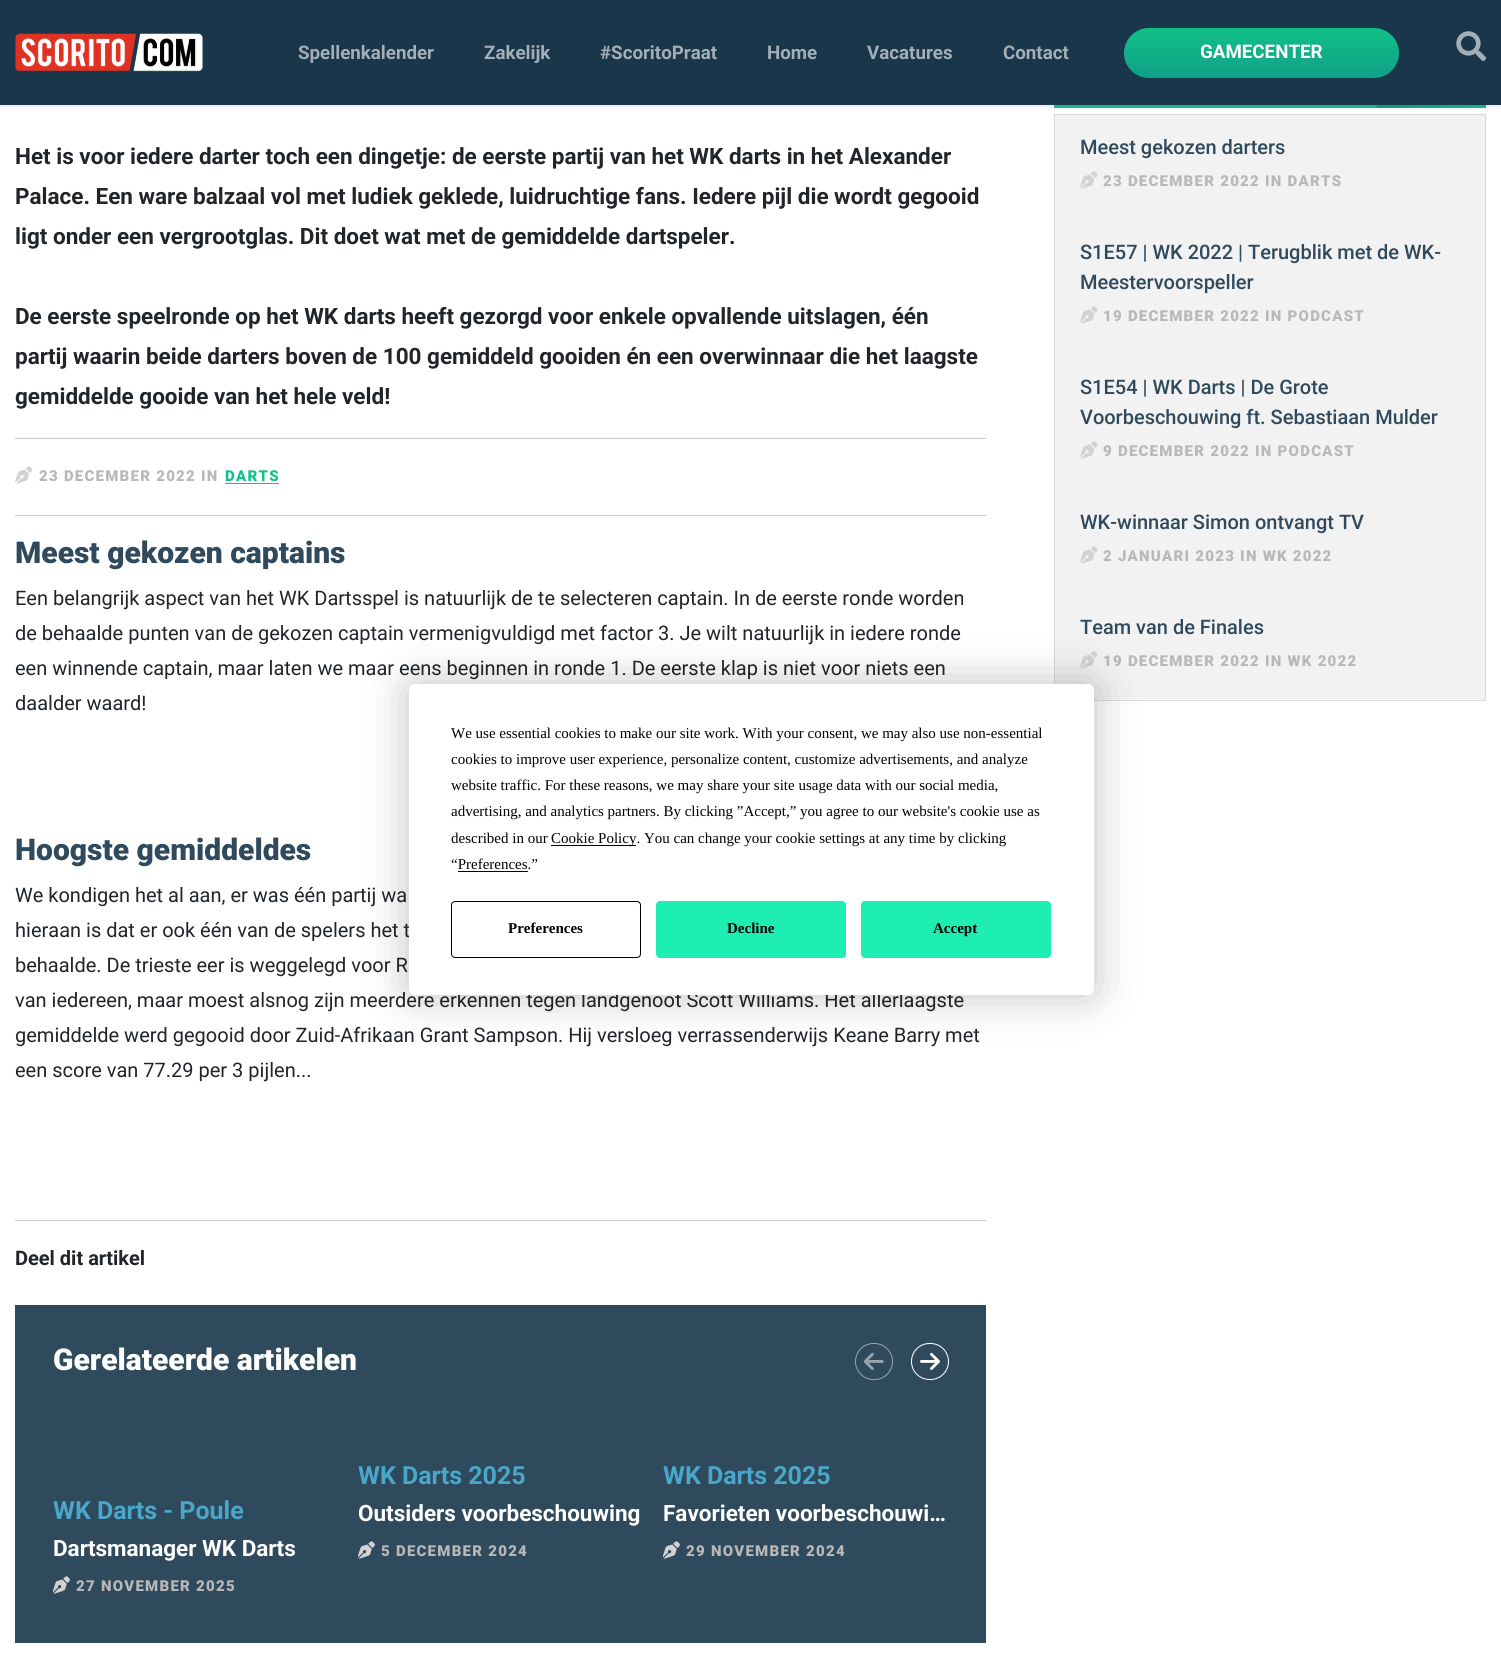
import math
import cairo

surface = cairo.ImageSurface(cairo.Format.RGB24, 1501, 1676)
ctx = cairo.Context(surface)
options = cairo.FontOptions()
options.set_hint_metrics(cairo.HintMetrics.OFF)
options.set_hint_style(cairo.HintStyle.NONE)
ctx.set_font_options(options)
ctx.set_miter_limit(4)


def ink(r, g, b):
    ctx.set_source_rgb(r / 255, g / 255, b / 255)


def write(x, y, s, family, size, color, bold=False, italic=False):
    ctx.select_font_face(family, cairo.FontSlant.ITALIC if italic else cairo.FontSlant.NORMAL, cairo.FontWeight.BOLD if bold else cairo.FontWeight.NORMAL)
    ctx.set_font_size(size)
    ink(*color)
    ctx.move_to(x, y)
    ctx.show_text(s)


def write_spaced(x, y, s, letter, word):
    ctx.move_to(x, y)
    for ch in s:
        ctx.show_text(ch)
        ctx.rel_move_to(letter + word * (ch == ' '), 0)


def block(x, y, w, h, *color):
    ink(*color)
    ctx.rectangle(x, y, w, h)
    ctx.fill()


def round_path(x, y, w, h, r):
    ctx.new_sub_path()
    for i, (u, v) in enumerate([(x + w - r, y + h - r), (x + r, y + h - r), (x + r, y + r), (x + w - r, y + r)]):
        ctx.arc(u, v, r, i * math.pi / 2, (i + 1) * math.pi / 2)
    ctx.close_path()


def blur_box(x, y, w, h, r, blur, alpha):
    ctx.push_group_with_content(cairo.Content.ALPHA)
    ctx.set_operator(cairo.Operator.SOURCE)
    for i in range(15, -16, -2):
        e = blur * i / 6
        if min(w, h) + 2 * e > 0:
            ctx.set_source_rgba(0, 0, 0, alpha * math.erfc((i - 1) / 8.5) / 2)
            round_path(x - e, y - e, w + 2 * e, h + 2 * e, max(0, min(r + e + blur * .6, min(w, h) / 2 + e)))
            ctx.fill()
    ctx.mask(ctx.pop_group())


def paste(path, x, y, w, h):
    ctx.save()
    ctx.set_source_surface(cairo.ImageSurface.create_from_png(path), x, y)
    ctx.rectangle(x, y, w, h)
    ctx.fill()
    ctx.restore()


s1 = dict(family="Roboto", size=18.75, color=(163, 175, 183), bold=True)
s2 = dict(family="Roboto", size=18.75, color=(255, 255, 255), bold=True)
s3 = dict(family="Roboto", size=22.5, color=(33, 37, 41), bold=True)
s4 = dict(family="Roboto Black", size=30, color=(48, 74, 93))
s5 = dict(family="Roboto", size=20, color=(33, 37, 41))
s6 = dict(family="Roboto", size=20, color=(33, 37, 41), bold=True)
s7 = dict(family="Roboto Black", size=30, color=(255, 255, 255))
s8 = dict(family="Roboto", size=25, color=(73, 167, 202), bold=True)
s9 = dict(family="Roboto", size=22.5, color=(255, 255, 255), bold=True)
s10 = dict(family="Roboto Medium", size=20, color=(48, 74, 93))
s11 = dict(family="Liberation Serif", size=15, color=(0, 0, 0))
s12 = dict(family="Liberation Serif", size=15, color=(0, 0, 0), bold=True)

ink(255, 255, 255)
ctx.paint()
gradient = cairo.LinearGradient(1065, 40, 1475, 150)
gradient.add_color_stop_rgba(0, 0.067, 0.765, 0.545, 1)
gradient.add_color_stop_rgba(0.75, 0.067, 0.765, 0.545, 1)
gradient.add_color_stop_rgba(0.75, 0.067, 0.631, 0.533, 1)
gradient.add_color_stop_rgba(1, 0.067, 0.765, 0.545, 1)
ctx.set_source(gradient)
ctx.rectangle(1054, 105, 432, 3)
ctx.fill()
block(1055, 115, 430, 584, 242, 242, 242)
ctx.rectangle(1054.5, 114.5, 431, 586)
ink(218, 218, 218)
ctx.set_line_width(1)
ctx.stroke()
ink(0, 0, 0)
blur_box(0, 0, 1501, 105, 0, 4, 0.16)
block(0, 0, 1501, 105, 26, 54, 75)
paste("pic1.png", 15, 33, 188, 39)
write(298, 59, "Spellenkalender", **s1)
write(484, 59, "Zakelijk", **s1)
write(600, 59, "#ScoritoPraat", **s1)
write(767, 59, "Home", **s1)
write(867, 59, "Vacatures", **s1)
write(1003, 59, "Contact", **s1)
gradient = cairo.LinearGradient(1261, 27, 1261, 78)
gradient.add_color_stop_rgba(0, 0.067, 0.753, 0.533, 1)
gradient.add_color_stop_rgba(1, 0.067, 0.631, 0.533, 1)
ctx.set_source(gradient)
round_path(1124, 28, 275, 50, 25)
ctx.fill()
write(1200, 58, "GAMECENTER", **s2)
paste("pic2.png", 1456, 31, 30, 30)
write(15, 164, "Het is voor iedere darter toch een dingetje: de eerste partij van het WK darts in het Alexander", **s3)
write(15, 204, "Palace. Een ware balzaal vol met ludiek geklede, luidruchtige fans. Iedere pijl die wordt gegooid", **s3)
write(15, 244, "ligt onder een vergrootglas. Dit doet wat met de gemiddelde dartspeler.", **s3)
write(15, 324, "De eerste speelronde op het WK darts heeft gezorgd voor enkele opvallende uitslagen, één", **s3)
write(15, 364, "partij waarin beide darters boven de 100 gemiddeld gooiden én een overwinnaar die het laagste", **s3)
write(15, 404, "gemiddelde gooide van het hele veld!", **s3)
block(15, 438, 971, 1, 200, 201, 202)
paste("pic3.png", 15, 466, 18, 18)
ctx.select_font_face("Roboto Black")
ctx.set_font_size(15)
ink(184, 184, 184)
write_spaced(39, 481, "23 DECEMBER 2022 IN", 1.25, 0)
ink(17, 195, 139)
write_spaced(225, 481, "DARTS", 1.25, 0)
block(225, 483, 54, 1, 17, 195, 139)
block(15, 515, 971, 1, 200, 201, 202)
write(15, 563, "Meest gekozen captains", **s4)
write(15, 605, "Een belangrijk aspect van het WK Dartsspel is natuurlijk de te selecteren captain. In de eerste ronde worden", **s5)
write(15, 640, "de behaalde punten van de gekozen captain vermenigvuldigd met factor 3. Je wilt natuurlijk in iedere ronde", **s5)
write(15, 675, "een winnende captain, maar laten we maar eens beginnen in ronde 1. De eerste klap is niet voor niets een", **s5)
write(15, 710, "daalder waard!", **s5)
write(15, 860, "Hoogste gemiddeldes", **s4)
write(15, 902, "We kondigen het al aan, er was één partij wa", **s5)
write(15, 937, "hieraan is dat er ook één van de spelers het t", **s5)
write(15, 972, "behaalde. De trieste eer is weggelegd voor R", **s5)
write(15, 1007, "van iedereen, maar moest alsnog zijn meerdere erkennen tegen landgenoot Scott Williams. Het allerlaagste", **s5)
write(15, 1042, "gemiddelde werd gegooid door Zuid-Afrikaan Grant Sampson. Hij versloeg verrassenderwijs Keane Barry met", **s5)
write(15, 1077, "een score van 77.29 per 3 pijlen...", **s5)
block(15, 1220, 971, 1, 200, 201, 202)
write(15, 1265, "Deel dit artikel", **s6)
block(15, 1305, 971, 338, 48, 74, 93)
write(53, 1370, "Gerelateerde artikelen", **s7)
round_path(855.5, 1343.5, 37, 36, 18)
ink(152, 165, 174)
ctx.stroke()
paste("pic4.png", 864, 1352, 20, 18)
round_path(911.5, 1343.5, 37, 36, 18)
ink(255, 255, 255)
ctx.stroke()
paste("pic5.png", 920, 1352, 20, 18)
write(53, 1519, "WK Darts - Poule", **s8)
write(53, 1556, "Dartsmanager WK Darts", **s9)
paste("pic6.png", 53, 1576, 17, 18)
ctx.select_font_face("Roboto Black")
ctx.set_font_size(15)
ink(184, 184, 184)
write_spaced(76, 1591, "27 NOVEMBER 2025", 1.25, 0)
write(358, 1484, "WK Darts 2025", **s8)
write(358, 1521, "Outsiders voorbeschouwing", **s9)
paste("pic6.png", 358, 1541, 17, 18)
ctx.select_font_face("Roboto Black")
ctx.set_font_size(15)
ink(184, 184, 184)
write_spaced(381, 1556, "5 DECEMBER 2024", 1.25, 0)
write(663, 1484, "WK Darts 2025", **s8)
write(663, 1521, "Favorieten voorbeschouwi…", **s9)
paste("pic6.png", 663, 1541, 17, 18)
ctx.select_font_face("Roboto Black")
ctx.set_font_size(15)
ink(184, 184, 184)
write_spaced(686, 1556, "29 NOVEMBER 2024", 1.25, 0)
block(1055, 219, 430, 1, 245, 245, 245)
write(1080, 154, "Meest gekozen darters", **s10)
paste("pic7.png", 1080, 171, 18, 18)
ctx.select_font_face("Roboto Black")
ctx.set_font_size(15)
ink(184, 184, 184)
write_spaced(1103, 186, "23 DECEMBER 2022 IN DARTS", 1.25, 0)
block(1055, 354, 430, 1, 245, 245, 245)
write(1080, 259, "S1E57 | WK 2022 | Terugblik met de WK-", **s10)
write(1080, 289, "Meestervoorspeller", **s10)
paste("pic7.png", 1080, 306, 18, 18)
ctx.select_font_face("Roboto Black")
ctx.set_font_size(15)
ink(184, 184, 184)
write_spaced(1103, 321, "19 DECEMBER 2022 IN PODCAST", 1.25, 0)
block(1055, 489, 430, 1, 245, 245, 245)
write(1080, 394, "S1E54 | WK Darts | De Grote", **s10)
write(1080, 424, "Voorbeschouwing ft. Sebastiaan Mulder", **s10)
paste("pic7.png", 1080, 441, 18, 18)
ctx.select_font_face("Roboto Black")
ctx.set_font_size(15)
ink(184, 184, 184)
write_spaced(1103, 456, "9 DECEMBER 2022 IN PODCAST", 1.25, 0)
block(1055, 594, 430, 1, 245, 245, 245)
write(1080, 529, "WK-winnaar Simon ontvangt TV", **s10)
paste("pic7.png", 1080, 546, 18, 18)
ctx.select_font_face("Roboto Black")
ctx.set_font_size(15)
ink(184, 184, 184)
write_spaced(1103, 561, "2 JANUARI 2023 IN WK 2022", 1.25, 0)
block(1094, 699, 391, 1, 245, 245, 245)
write(1080, 634, "Team van de Finales", **s10)
paste("pic7.png", 1080, 651, 18, 18)
ctx.select_font_face("Roboto Black")
ctx.set_font_size(15)
ink(184, 184, 184)
write_spaced(1103, 666, "19 DECEMBER 2022 IN WK 2022", 1.25, 0)
ink(0, 0, 0)
blur_box(409, 684, 685, 311, 6, 22, 0.25)
ink(255, 255, 255)
round_path(409, 684, 685, 311, 6)
ctx.fill()
write(451, 738, "We use essential cookies to make our site work. With your consent, we may also use non-essential", **s11)
write(451, 764, "cookies to improve user experience, personalize content, customize advertisements, and analyze", **s11)
write(451, 790, "website traffic. For these reasons, we may share your site usage data with our social media,", **s11)
write(451, 816, "advertising, and analytics partners. By clicking ”Accept,” you agree to our website's cookie use as", **s11)
write(451, 843, "described in our", **s11)
block(551, 845, 85, 1, 0, 0, 0)
write(551, 843, "Cookie Policy. You can change your cookie settings at any time by clicking", **s11)
write(451, 869, "“Preferences.”", **s11)
block(458, 871, 70, 1, 0, 0, 0)
round_path(451.5, 901.5, 189, 56, 3.5)
ctx.stroke()
write(508, 933, "Preferences", **s12)
ink(31, 238, 180)
round_path(656.5, 901.5, 189, 56, 3.5)
ctx.fill_preserve()
ctx.stroke()
write(727, 933, "Decline", **s12)
ink(31, 238, 180)
round_path(861.5, 901.5, 189, 56, 3.5)
ctx.fill_preserve()
ctx.stroke()
write(933, 933, "Accept", **s12)
surface.write_to_png("screenshot.png")
